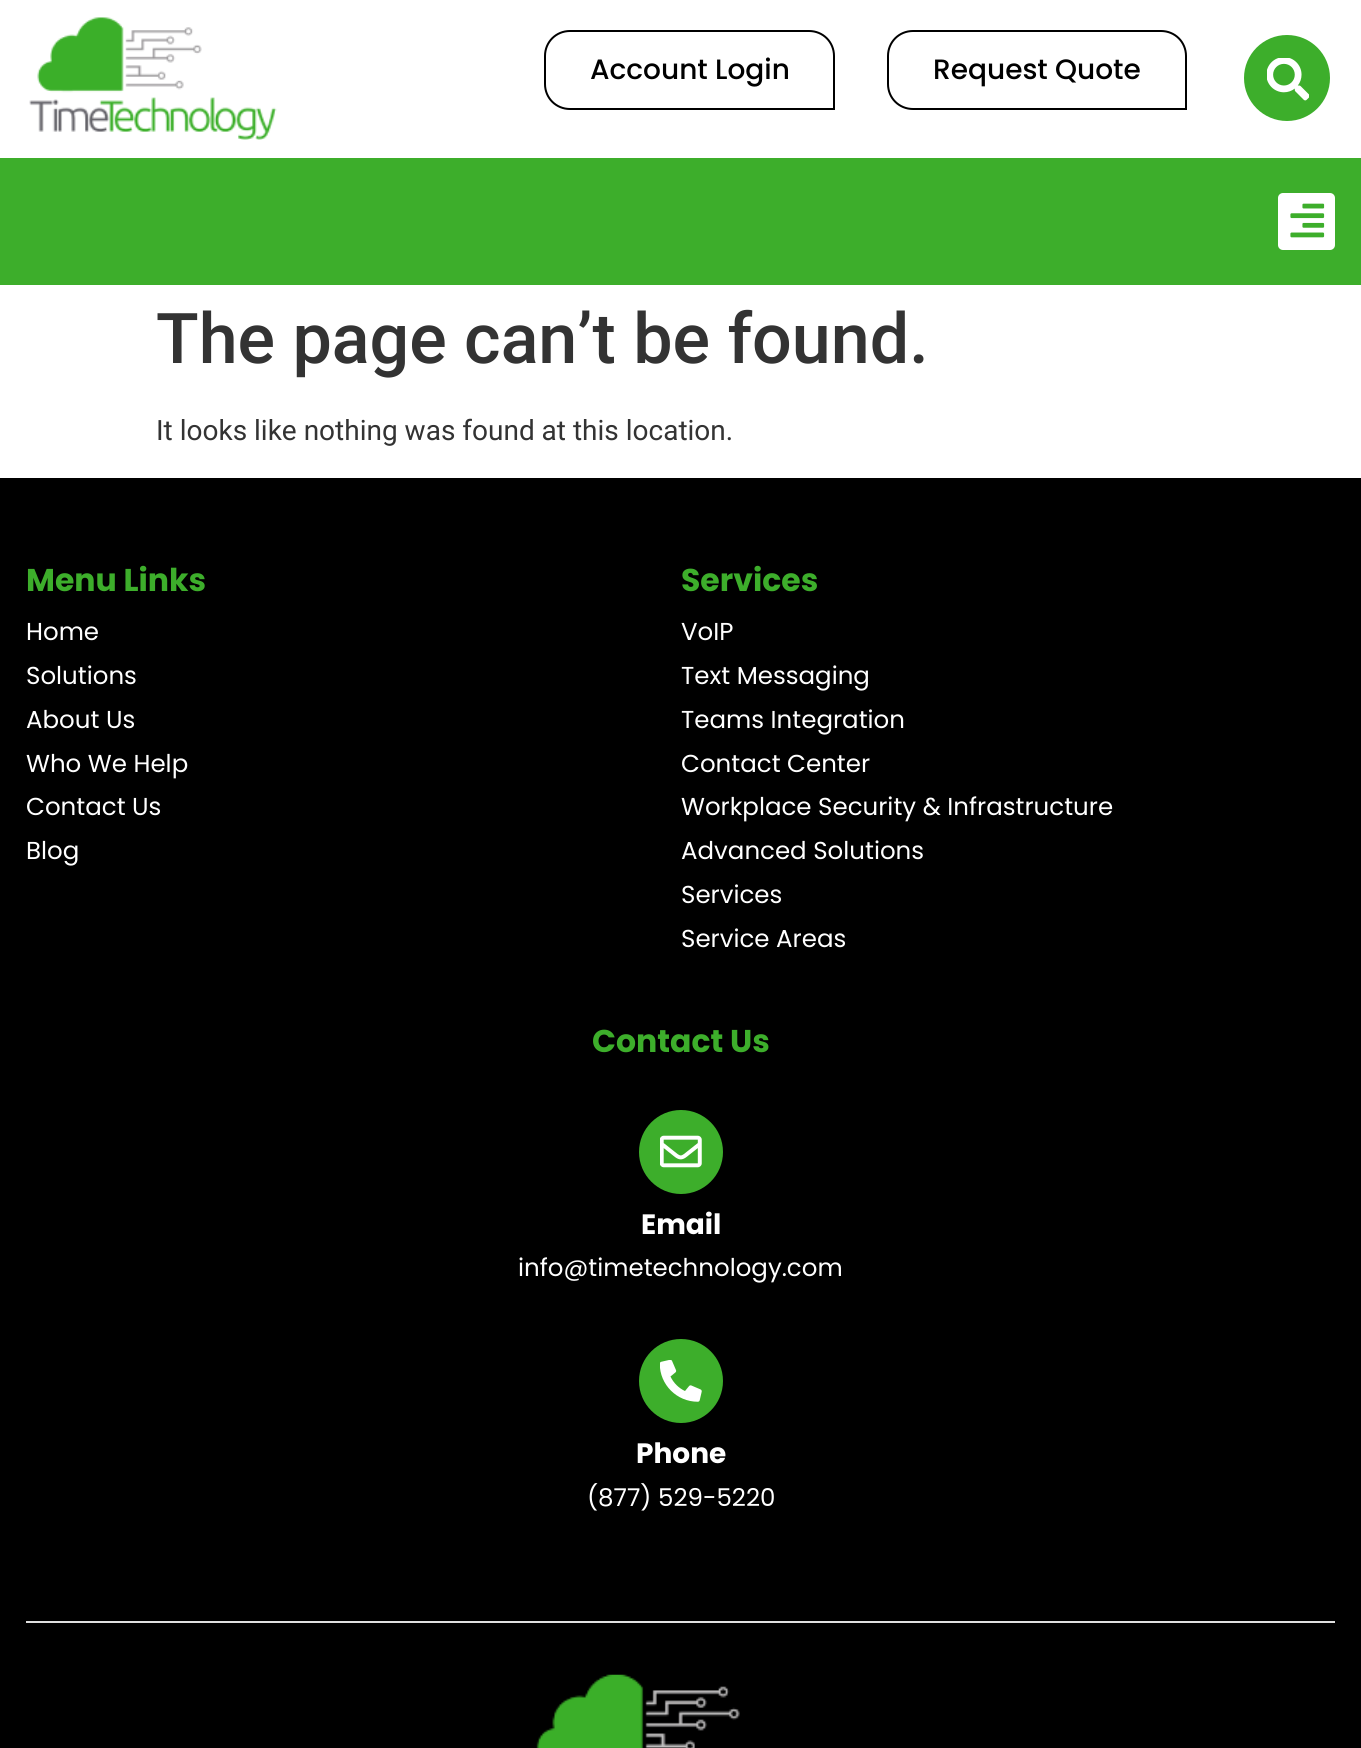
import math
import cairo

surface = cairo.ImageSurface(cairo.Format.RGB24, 1361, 1748)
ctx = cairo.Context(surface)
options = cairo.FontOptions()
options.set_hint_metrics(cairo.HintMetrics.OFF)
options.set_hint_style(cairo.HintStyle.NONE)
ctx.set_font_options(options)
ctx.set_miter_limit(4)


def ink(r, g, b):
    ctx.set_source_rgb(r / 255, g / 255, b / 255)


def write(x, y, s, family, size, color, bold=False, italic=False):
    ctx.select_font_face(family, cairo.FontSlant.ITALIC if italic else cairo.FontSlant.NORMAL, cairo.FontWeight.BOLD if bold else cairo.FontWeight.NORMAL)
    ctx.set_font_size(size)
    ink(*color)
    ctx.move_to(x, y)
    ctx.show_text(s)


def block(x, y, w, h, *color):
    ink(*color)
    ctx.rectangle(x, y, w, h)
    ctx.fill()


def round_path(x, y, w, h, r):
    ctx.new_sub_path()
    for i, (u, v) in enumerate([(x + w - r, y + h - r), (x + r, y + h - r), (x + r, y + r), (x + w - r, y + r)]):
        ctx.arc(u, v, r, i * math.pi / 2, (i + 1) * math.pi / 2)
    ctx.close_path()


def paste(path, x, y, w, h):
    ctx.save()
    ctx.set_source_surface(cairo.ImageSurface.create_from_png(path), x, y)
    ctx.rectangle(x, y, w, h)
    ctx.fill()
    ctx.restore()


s1 = dict(family="Poppins Medium", size=28, color=(0, 0, 0))
s2 = dict(family="Roboto Medium", size=70, color=(51, 51, 51))
s3 = dict(family="Roboto", size=28, color=(51, 51, 51))
s4 = dict(family="Poppins", size=31.5, color=(61, 174, 43), bold=True)
s5 = dict(family="Poppins", size=24.5, color=(255, 255, 255))
s6 = dict(family="Poppins", size=28, color=(255, 255, 255), bold=True)

ink(255, 255, 255)
ctx.paint()
paste("pic1.png", 29, 17, 248, 123)
ctx.new_path()
ctx.move_to(570, 31)
ctx.line_to(809, 31)
ctx.curve_to(823, 31, 834, 42, 834, 56)
ctx.line_to(834, 109)
ctx.line_to(570, 109)
ctx.curve_to(556, 109, 545, 98, 545, 84)
ctx.line_to(545, 56)
ctx.curve_to(545, 42, 556, 31, 570, 31)
ctx.close_path()
ink(0, 0, 0)
ctx.stroke()
write(590, 79, "Account Login", **s1)
ctx.new_path()
ctx.move_to(913, 31)
ctx.line_to(1161, 31)
ctx.curve_to(1175, 31, 1186, 42, 1186, 56)
ctx.line_to(1186, 109)
ctx.line_to(913, 109)
ctx.curve_to(899, 109, 888, 98, 888, 84)
ctx.line_to(888, 56)
ctx.curve_to(888, 42, 899, 31, 913, 31)
ctx.close_path()
ctx.stroke()
write(933, 79, "Request Quote", **s1)
ink(61, 174, 43)
ctx.new_path()
ctx.arc(1287, 78, 45.5, 0, 2 * math.pi)
ctx.fill_preserve()
ink(255, 255, 255)
ctx.set_line_width(5)
ctx.stroke()
paste("pic2.png", 1267, 58, 42, 43)
block(0, 158, 1361, 127, 61, 174, 43)
ink(255, 255, 255)
round_path(1278, 193, 57, 57, 5)
ctx.fill()
paste("pic3.png", 1290, 203, 35, 35)
write(156, 363, "The page can’t be found.", **s2)
write(156, 440, "It looks like nothing was found at this location.", **s3)
block(0, 478, 1361, 1270, 0, 0, 0)
write(26, 591, "Menu Links", **s4)
write(26, 640, "Home", **s5)
write(26, 684, "Solutions", **s5)
write(26, 728, "About Us", **s5)
write(26, 772, "Who We Help", **s5)
write(26, 815, "Contact Us", **s5)
write(26, 859, "Blog", **s5)
write(681, 591, "Services", **s4)
write(681, 640, "VoIP", **s5)
write(681, 684, "Text Messaging", **s5)
write(681, 728, "Teams Integration", **s5)
write(681, 772, "Contact Center", **s5)
write(681, 815, "Workplace Security & Infrastructure", **s5)
write(681, 859, "Advanced Solutions", **s5)
write(681, 903, "Services", **s5)
write(681, 947, "Service Areas", **s5)
write(592, 1052, "Contact Us", **s4)
ctx.new_path()
ctx.arc(681, 1152, 42, 0, 2 * math.pi)
ctx.fill()
paste("pic4.png", 660, 1135, 42, 33)
write(641, 1234, "Email", **s6)
write(518, 1276, "info@timetechnology.com", **s5)
ink(61, 174, 43)
ctx.new_path()
ctx.arc(681, 1381, 42, 0, 2 * math.pi)
ctx.fill()
paste("pic5.png", 660, 1360, 42, 42)
write(636, 1463, "Phone", **s6)
write(587, 1506, "(877) 529-5220", **s5)
block(26, 1621, 1309, 2, 223, 223, 223)
paste("pic6.png", 536, 1674, 204, 74)
surface.write_to_png("screenshot.png")
